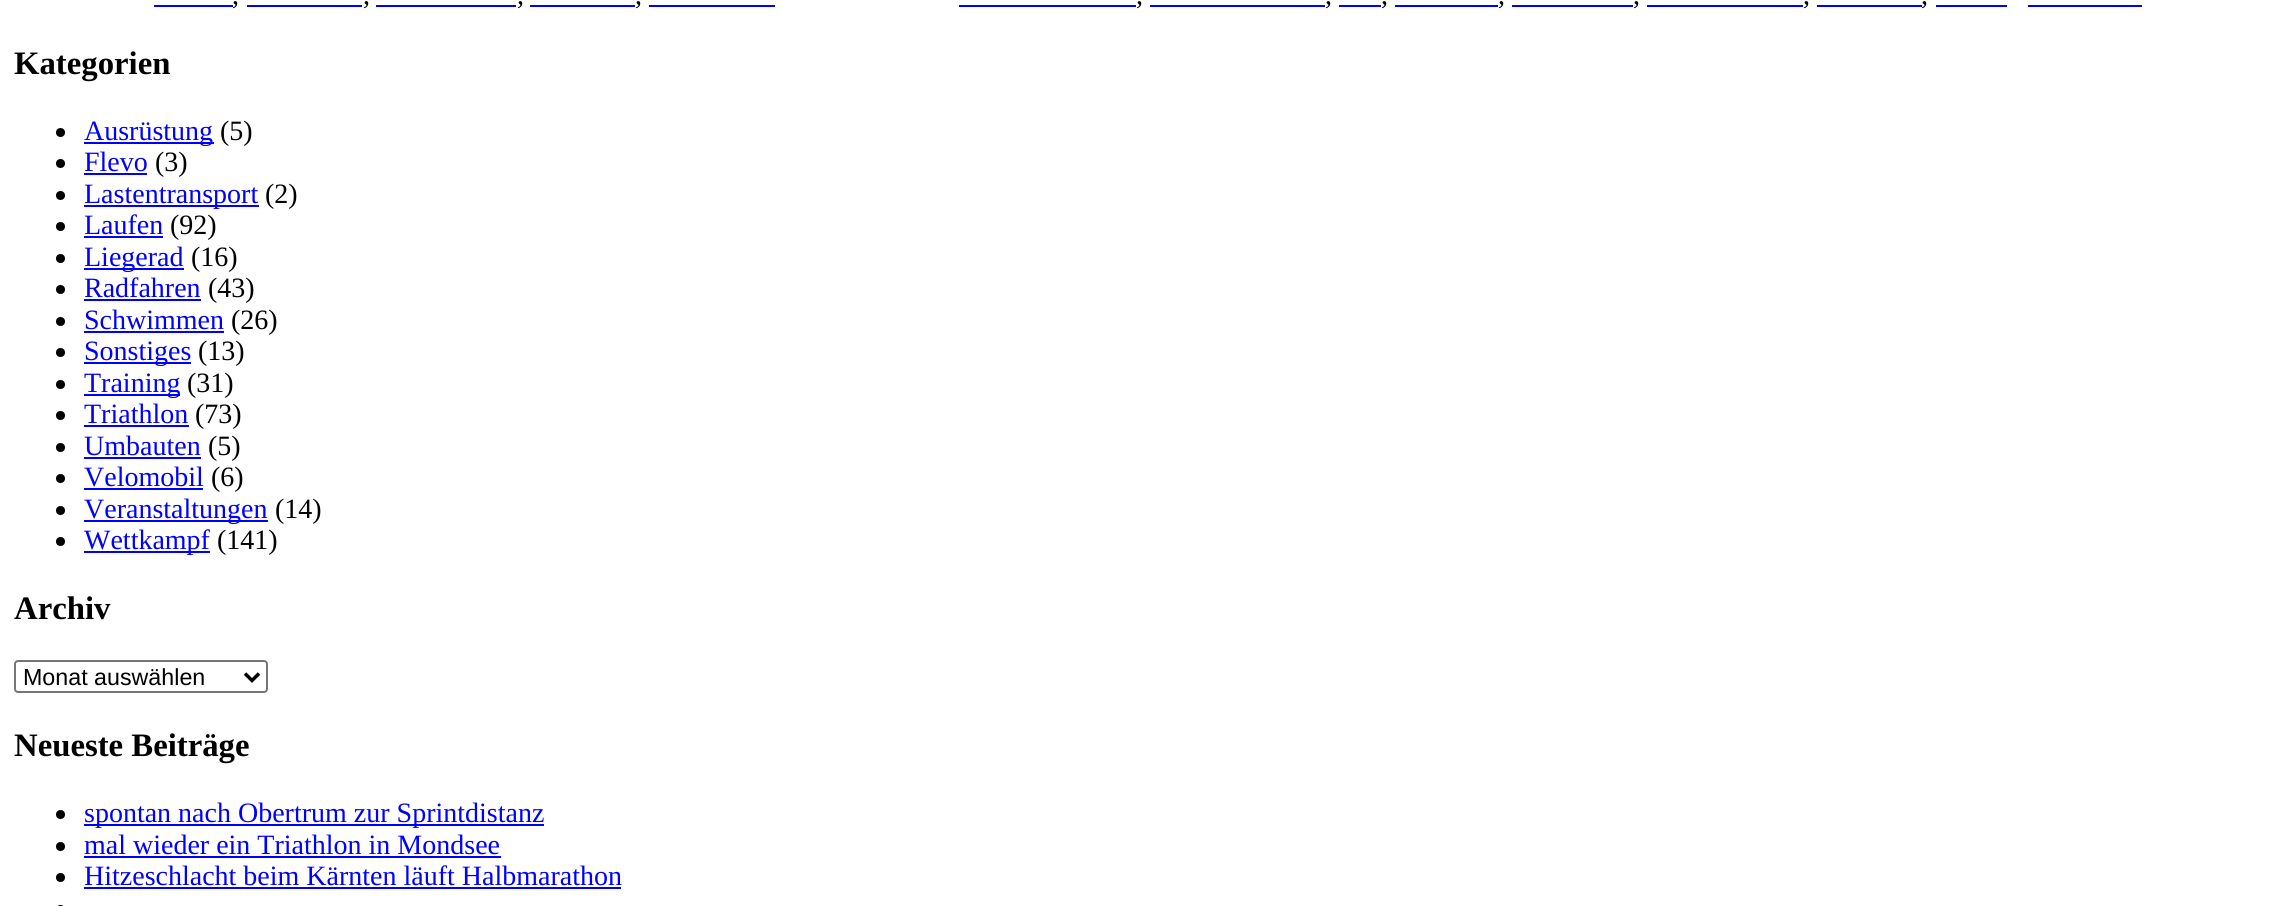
import math
import cairo

surface = cairo.ImageSurface(cairo.Format.RGB24, 2288, 906)
ctx = cairo.Context(surface)
options = cairo.FontOptions()
options.set_hint_metrics(cairo.HintMetrics.OFF)
options.set_hint_style(cairo.HintStyle.NONE)
ctx.set_font_options(options)
ctx.set_miter_limit(4)


def ink(r, g, b):
    ctx.set_source_rgb(r / 255, g / 255, b / 255)


def write(x, y, s, family, size, color, bold=False, italic=False):
    ctx.select_font_face(family, cairo.FontSlant.ITALIC if italic else cairo.FontSlant.NORMAL, cairo.FontWeight.BOLD if bold else cairo.FontWeight.NORMAL)
    ctx.set_font_size(size)
    ink(*color)
    ctx.move_to(x, y)
    ctx.show_text(s)


def block(x, y, w, h, *color):
    ink(*color)
    ctx.rectangle(x, y, w, h)
    ctx.fill()


def round_path(x, y, w, h, r):
    ctx.new_sub_path()
    for i, (u, v) in enumerate([(x + w - r, y + h - r), (x + r, y + h - r), (x + r, y + r), (x + w - r, y + r)]):
        ctx.arc(u, v, r, i * math.pi / 2, (i + 1) * math.pi / 2)
    ctx.close_path()


s1 = dict(family="Liberation Serif", size=28, color=(0, 0, 0))
s2 = dict(family="Liberation Serif", size=32.75, color=(0, 0, 0), bold=True)
s3 = dict(family="Liberation Serif", size=28, color=(0, 0, 254))
s4 = dict(family="Liberation Sans", size=23.25, color=(0, 0, 0))

ink(255, 255, 255)
ctx.paint()
block(154, 5, 79, 2, 0, 0, 254)
write(232, 4, ",", **s1)
block(247, 5, 115, 2, 0, 0, 254)
write(363, 4, ",", **s1)
block(376, 5, 140, 2, 0, 0, 254)
write(517, 4, ",", **s1)
block(530, 5, 105, 2, 0, 0, 254)
write(635, 4, ",", **s1)
block(649, 5, 126, 2, 0, 0, 254)
block(959, 5, 177, 2, 0, 0, 254)
write(1136, 4, ",", **s1)
block(1150, 5, 175, 2, 0, 0, 254)
write(1325, 4, ",", **s1)
block(1339, 5, 42, 2, 0, 0, 254)
write(1381, 4, ",", **s1)
block(1395, 5, 103, 2, 0, 0, 254)
write(1498, 4, ",", **s1)
block(1512, 5, 121, 2, 0, 0, 254)
write(1633, 4, ",", **s1)
block(1647, 5, 156, 2, 0, 0, 254)
write(1803, 4, ",", **s1)
block(1817, 5, 105, 2, 0, 0, 254)
write(1921, 4, ",", **s1)
block(1936, 5, 71, 2, 0, 0, 254)
block(2028, 5, 114, 2, 0, 0, 254)
write(14, 74, "Kategorien", **s2)
ctx.new_path()
ctx.arc(60.5, 132.5, 4.5, 0, 2 * math.pi)
ctx.fill()
block(84, 142, 130, 2, 0, 0, 254)
write(84, 140, "Ausrüstung", **s3)
write(220, 140, "(5)", **s1)
ctx.new_path()
ctx.arc(60.5, 163.5, 4.5, 0, 2 * math.pi)
ctx.fill()
write(84, 171, "Flevo", **s3)
block(84, 173, 63, 2, 0, 0, 254)
write(155, 171, "(3)", **s1)
ctx.new_path()
ctx.arc(60.5, 195.5, 4.5, 0, 2 * math.pi)
ctx.fill()
block(84, 205, 175, 2, 0, 0, 254)
write(84, 203, "Lastentransport", **s3)
write(265, 203, "(2)", **s1)
ctx.new_path()
ctx.arc(60.5, 226.5, 4.5, 0, 2 * math.pi)
ctx.fill()
write(84, 234, "Laufen", **s3)
block(84, 236, 79, 2, 0, 0, 254)
write(170, 234, "(92)", **s1)
ctx.new_path()
ctx.arc(60.5, 258.5, 4.5, 0, 2 * math.pi)
ctx.fill()
block(84, 268, 100, 2, 0, 0, 254)
write(84, 266, "Liegerad", **s3)
write(191, 266, "(16)", **s1)
ctx.new_path()
ctx.arc(60.5, 289.5, 4.5, 0, 2 * math.pi)
ctx.fill()
write(84, 297, "Radfahren", **s3)
block(84, 299, 117, 2, 0, 0, 254)
write(208, 297, "(43)", **s1)
ctx.new_path()
ctx.arc(60.5, 321.5, 4.5, 0, 2 * math.pi)
ctx.fill()
write(84, 329, "Schwimmen", **s3)
block(84, 331, 140, 2, 0, 0, 254)
write(231, 329, "(26)", **s1)
ctx.new_path()
ctx.arc(60.5, 352.5, 4.5, 0, 2 * math.pi)
ctx.fill()
block(84, 362, 107, 2, 0, 0, 254)
write(84, 360, "Sonstiges", **s3)
write(198, 360, "(13)", **s1)
ctx.new_path()
ctx.arc(60.5, 384.5, 4.5, 0, 2 * math.pi)
ctx.fill()
block(84, 394, 96, 2, 0, 0, 254)
write(84, 392, "Training", **s3)
write(187, 392, "(31)", **s1)
ctx.new_path()
ctx.arc(60.5, 415.5, 4.5, 0, 2 * math.pi)
ctx.fill()
write(84, 423, "Triathlon", **s3)
block(84, 425, 105, 2, 0, 0, 254)
write(195, 423, "(73)", **s1)
ctx.new_path()
ctx.arc(60.5, 447.5, 4.5, 0, 2 * math.pi)
ctx.fill()
write(84, 455, "Umbauten", **s3)
block(84, 457, 117, 2, 0, 0, 254)
write(208, 455, "(5)", **s1)
ctx.new_path()
ctx.arc(60.5, 478.5, 4.5, 0, 2 * math.pi)
ctx.fill()
write(84, 486, "Velomobil", **s3)
block(84, 488, 119, 2, 0, 0, 254)
write(211, 486, "(6)", **s1)
ctx.new_path()
ctx.arc(60.5, 510.5, 4.5, 0, 2 * math.pi)
ctx.fill()
block(84, 520, 184, 2, 0, 0, 254)
write(84, 518, "Veranstaltungen", **s3)
write(275, 518, "(14)", **s1)
ctx.new_path()
ctx.arc(60.5, 541.5, 4.5, 0, 2 * math.pi)
ctx.fill()
block(84, 551, 126, 2, 0, 0, 254)
write(84, 549, "Wettkampf", **s3)
write(217, 549, "(141)", **s1)
write(14, 619, "Archiv", **s2)
round_path(15, 661, 252, 31, 3)
ink(118, 118, 118)
ctx.stroke()
ctx.new_path()
ctx.move_to(245, 673.5)
ctx.line_to(252, 680.5)
ctx.line_to(259, 673.5)
ink(0, 0, 0)
ctx.set_line_width(3.5)
ctx.stroke()
write(23, 685, "Monat auswählen", **s4)
write(14, 756, "Neueste Beiträge", **s2)
ctx.new_path()
ctx.arc(60.5, 814.5, 4.5, 0, 2 * math.pi)
ctx.fill()
block(84, 824, 460, 2, 0, 0, 254)
write(84, 822, "spontan nach Obertrum zur Sprintdistanz", **s3)
ink(0, 0, 0)
ctx.new_path()
ctx.arc(60.5, 846.5, 4.5, 0, 2 * math.pi)
ctx.fill()
write(84, 854, "mal wieder ein Triathlon in Mondsee", **s3)
block(84, 856, 417, 2, 0, 0, 254)
ink(0, 0, 0)
ctx.new_path()
ctx.arc(60.5, 877.5, 4.5, 0, 2 * math.pi)
ctx.fill()
write(84, 885, "Hitzeschlacht beim Kärnten läuft Halbmarathon", **s3)
block(84, 887, 537, 2, 0, 0, 254)
ink(0, 0, 0)
round_path(56, 905, 9, 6, 4.5)
ctx.fill()
surface.write_to_png("screenshot.png")
